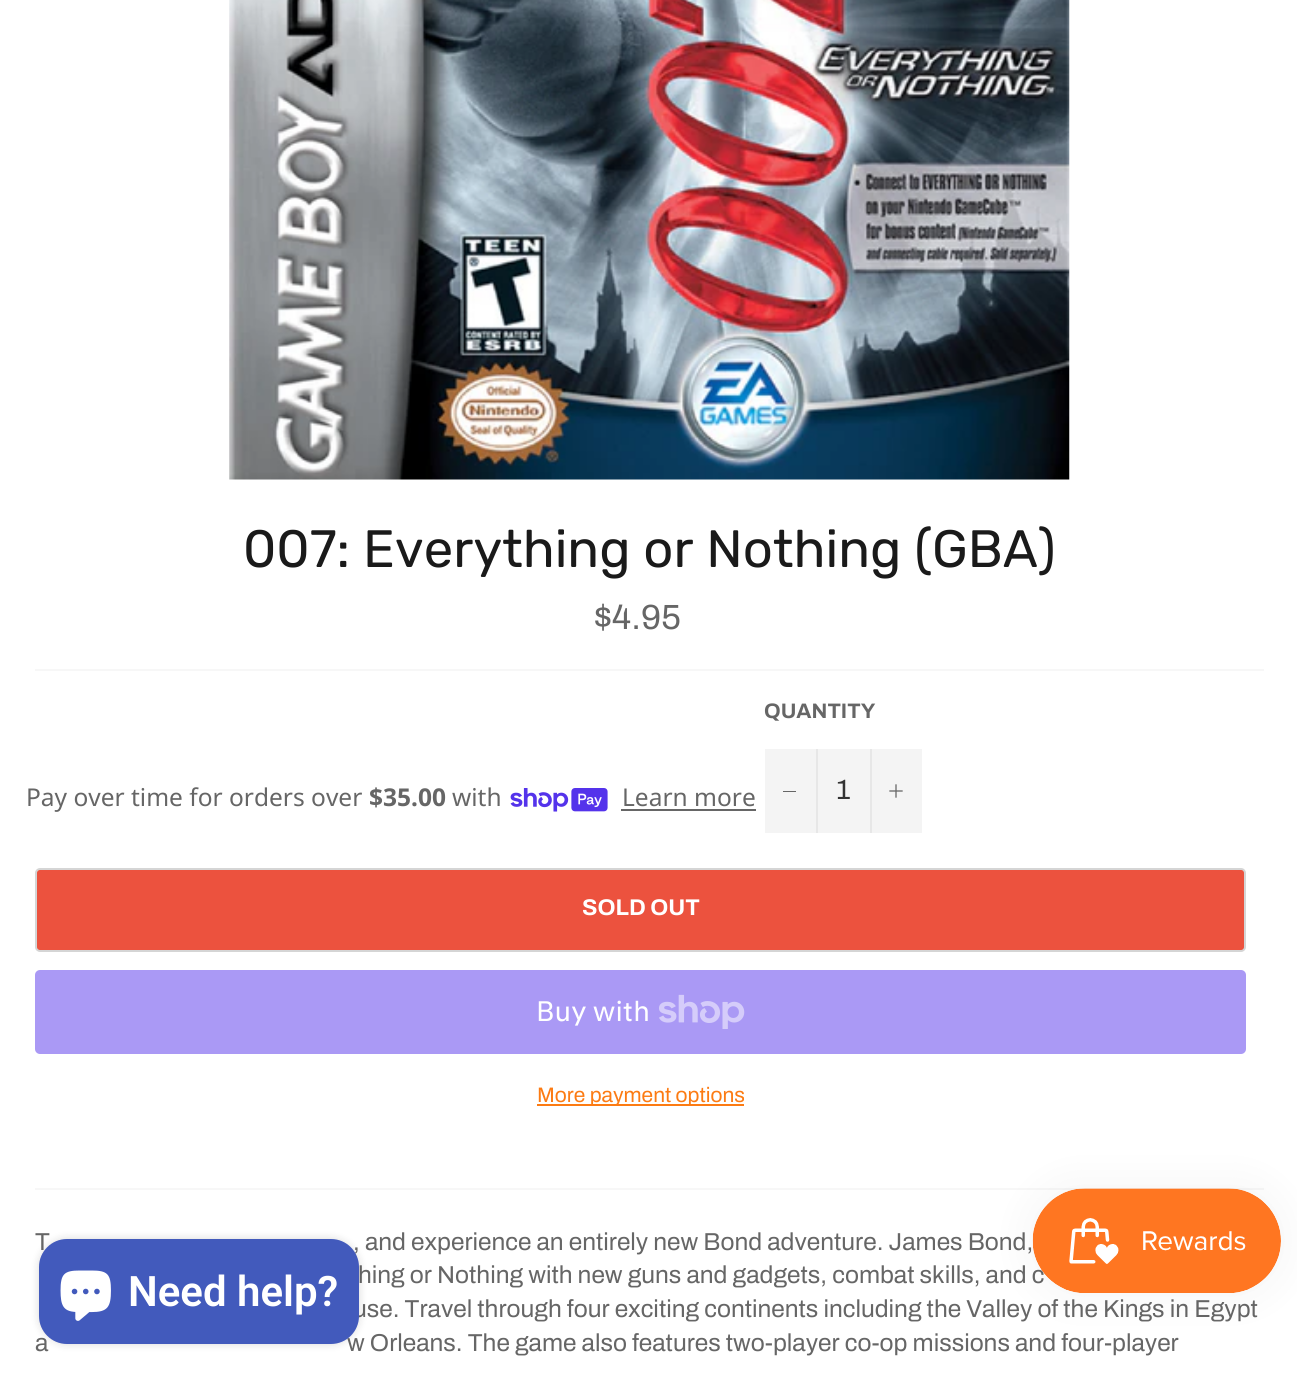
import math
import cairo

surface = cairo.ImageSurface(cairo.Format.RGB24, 1297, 1380)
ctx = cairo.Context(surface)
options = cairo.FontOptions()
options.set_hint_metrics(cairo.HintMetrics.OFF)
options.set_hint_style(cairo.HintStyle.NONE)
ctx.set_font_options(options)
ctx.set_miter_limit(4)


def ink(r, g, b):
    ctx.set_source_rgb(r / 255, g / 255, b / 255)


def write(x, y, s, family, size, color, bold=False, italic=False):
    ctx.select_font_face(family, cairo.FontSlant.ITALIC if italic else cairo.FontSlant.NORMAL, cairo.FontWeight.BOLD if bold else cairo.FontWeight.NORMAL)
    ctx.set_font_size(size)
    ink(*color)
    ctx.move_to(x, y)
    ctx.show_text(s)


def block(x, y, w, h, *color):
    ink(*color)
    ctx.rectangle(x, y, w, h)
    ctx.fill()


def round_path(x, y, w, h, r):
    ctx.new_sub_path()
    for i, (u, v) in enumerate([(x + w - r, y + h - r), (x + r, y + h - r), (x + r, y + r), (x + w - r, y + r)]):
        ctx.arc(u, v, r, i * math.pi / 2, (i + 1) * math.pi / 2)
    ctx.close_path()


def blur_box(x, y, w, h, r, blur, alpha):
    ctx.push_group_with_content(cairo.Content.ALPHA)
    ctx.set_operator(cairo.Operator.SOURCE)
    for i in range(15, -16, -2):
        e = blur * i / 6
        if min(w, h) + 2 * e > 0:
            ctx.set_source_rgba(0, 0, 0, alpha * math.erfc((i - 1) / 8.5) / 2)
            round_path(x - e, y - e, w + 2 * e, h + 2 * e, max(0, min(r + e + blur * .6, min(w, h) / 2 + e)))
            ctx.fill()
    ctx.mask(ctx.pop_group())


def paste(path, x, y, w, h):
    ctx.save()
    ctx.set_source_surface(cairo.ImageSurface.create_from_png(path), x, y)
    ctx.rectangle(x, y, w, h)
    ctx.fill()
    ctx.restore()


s1 = dict(family="Rubik", size=52.5, color=(26, 26, 26))
s2 = dict(family="Archivo", size=35, color=(102, 102, 102))
s3 = dict(family="Noto Sans", size=24.5, color=(102, 102, 102))
s4 = dict(family="Noto Sans", size=24.5, color=(102, 102, 102), bold=True)
s5 = dict(family="Archivo", size=21, color=(102, 102, 102), bold=True)
s6 = dict(family="Archivo", size=28, color=(51, 51, 51))
s7 = dict(family="Archivo", size=22.75, color=(255, 255, 255), bold=True)
s8 = dict(family="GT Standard", size=28, color=(255, 255, 255))
s9 = dict(family="Archivo", size=21, color=(252, 123, 19))
s10 = dict(family="Archivo", size=24.5, color=(102, 102, 102))
s11 = dict(family="Roboto SemiBold", size=42, color=(255, 255, 255))

ink(255, 255, 255)
ctx.paint()
paste("pic1.png", 229, 0, 841, 480)
write(243, 567, "007: Everything or Nothing (GBA)", **s1)
write(594, 629, "$4.95", **s2)
block(35, 669, 1229, 2, 247, 247, 247)
write(26, 806, "Pay over time for orders over", **s3)
write(369, 806, "$35.00", **s4)
write(452, 806, "with", **s3)
paste("pic2.png", 510, 788, 98, 24)
write(622, 806, "Learn more", **s3)
block(621, 809, 135, 2, 102, 102, 102)
write(764, 718, "QUANTITY", **s5)
block(765, 749, 157, 84, 244, 244, 244)
block(816, 749, 2, 84, 231, 231, 231)
block(783, 791, 13, 1, 102, 102, 102)
write(836, 799, "1", **s6)
block(870, 749, 2, 84, 231, 231, 231)
paste("pic3.png", 889, 784, 14, 14)
ink(236, 82, 62)
round_path(36, 869, 1209, 82, 4)
ctx.fill_preserve()
ink(213, 213, 213)
ctx.stroke()
write(582, 915, "SOLD OUT", **s7)
ink(170, 153, 245)
round_path(35, 970, 1211, 84, 5)
ctx.fill()
write(536, 1021, "Buy with", **s8)
paste("pic4.png", 659, 994, 86, 35)
block(537, 1104, 207, 2, 252, 123, 19)
write(537, 1102, "More payment options", **s9)
block(35, 1188, 1229, 2, 247, 247, 247)
write(35, 1250, "T", **s10)
write(353, 1250, ", and experience an entirely new Bond adventure. James Bond,", **s10)
write(358, 1283, "hing or Nothing with new guns and gadgets, combat skills, and c", **s10)
write(353, 1317, "use. Travel through four exciting continents including the Valley of the Kings in Egypt", **s10)
write(35, 1351, "a", **s10)
write(347, 1351, "w Orleans. The game also features two-player co-op missions and four-player", **s10)
ink(0, 0, 0)
blur_box(39, 1239, 320, 105, 28, 4.5, 0.15)
ink(66, 90, 188)
round_path(39, 1239, 320, 105, 28)
ctx.fill()
paste("pic5.png", 60, 1270, 51, 51)
write(128, 1306, "Need help?", **s11)
ink(0, 0, 0)
blur_box(1033, 1188, 248, 105, 52.5, 22, 0.05)
paste("pic6.png", 1032, 1188, 249, 105)
surface.write_to_png("screenshot.png")
